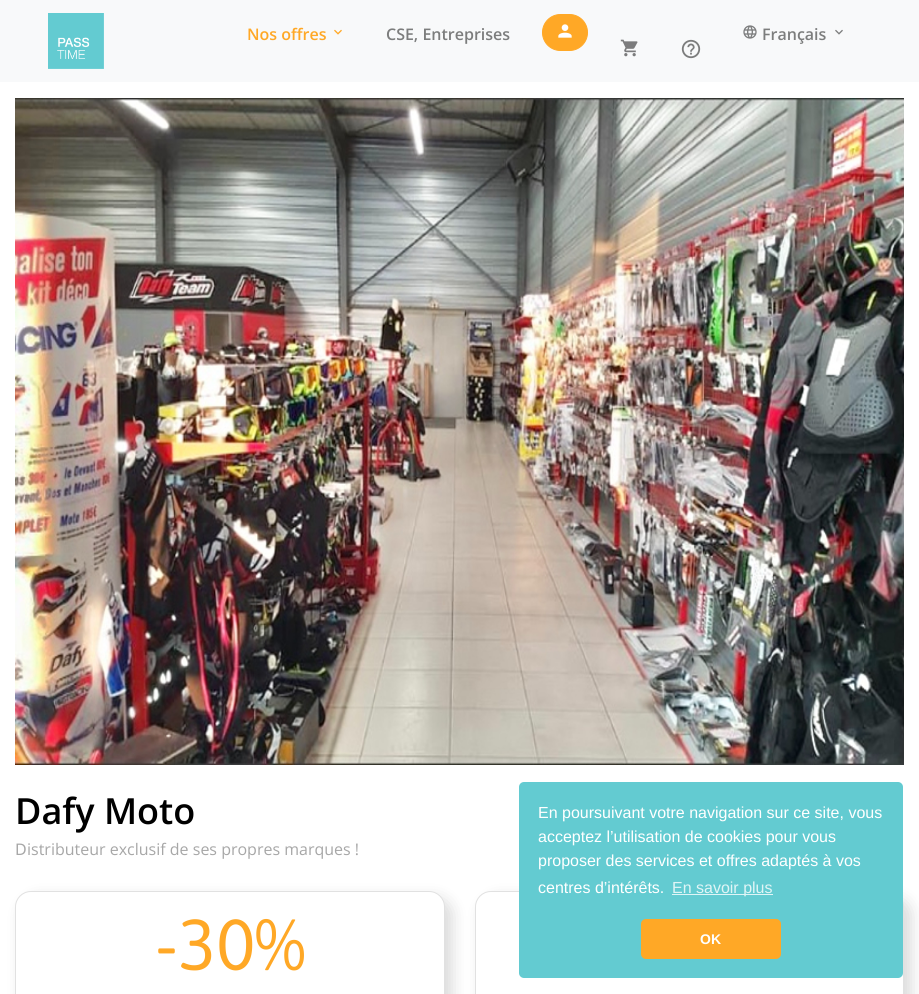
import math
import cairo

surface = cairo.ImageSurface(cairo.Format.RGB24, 919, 994)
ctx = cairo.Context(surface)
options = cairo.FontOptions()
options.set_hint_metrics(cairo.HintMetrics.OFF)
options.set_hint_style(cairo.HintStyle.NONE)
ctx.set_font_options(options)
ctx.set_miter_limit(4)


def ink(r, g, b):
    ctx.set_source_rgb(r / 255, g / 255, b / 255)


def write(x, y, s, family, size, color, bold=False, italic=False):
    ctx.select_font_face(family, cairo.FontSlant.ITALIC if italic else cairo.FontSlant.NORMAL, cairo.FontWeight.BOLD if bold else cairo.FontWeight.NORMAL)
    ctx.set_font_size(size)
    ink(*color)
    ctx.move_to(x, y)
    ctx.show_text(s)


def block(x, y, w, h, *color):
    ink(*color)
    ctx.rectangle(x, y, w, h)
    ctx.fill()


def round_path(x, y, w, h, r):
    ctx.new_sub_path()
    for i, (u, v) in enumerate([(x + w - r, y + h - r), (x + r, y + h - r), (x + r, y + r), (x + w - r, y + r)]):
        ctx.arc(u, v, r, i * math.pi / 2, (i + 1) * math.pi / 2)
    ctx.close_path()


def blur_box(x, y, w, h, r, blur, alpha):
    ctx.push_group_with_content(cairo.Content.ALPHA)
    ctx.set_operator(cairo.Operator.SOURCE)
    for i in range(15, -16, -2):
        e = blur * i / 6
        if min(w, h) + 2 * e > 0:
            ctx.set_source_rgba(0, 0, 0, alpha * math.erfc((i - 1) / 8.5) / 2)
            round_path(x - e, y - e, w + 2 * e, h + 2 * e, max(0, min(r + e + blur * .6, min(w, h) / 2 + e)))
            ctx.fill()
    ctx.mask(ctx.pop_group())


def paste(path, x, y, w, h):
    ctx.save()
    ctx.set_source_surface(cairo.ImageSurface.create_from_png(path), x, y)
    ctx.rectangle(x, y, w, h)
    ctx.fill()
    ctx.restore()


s1 = dict(family="Open Sans SemiBold", size=16, color=(255, 168, 38))
s2 = dict(family="Open Sans SemiBold", size=16, color=(124, 125, 125))
s3 = dict(family="Open Sans SemiBold", size=36, color=(0, 0, 0))
s4 = dict(family="Noto Sans", size=16, color=(167, 167, 167))
s5 = dict(family="Open Sans", size=16, color=(167, 167, 167))
s6 = dict(family="Asap", size=72, color=(255, 168, 38))
s7 = dict(family="Liberation Sans", size=16, color=(255, 255, 255))
s8 = dict(family="Liberation Sans", size=16, color=(224, 245, 246))
s9 = dict(family="Liberation Sans", size=14, color=(255, 255, 255), bold=True)

ink(255, 255, 255)
ctx.paint()
block(0, 0, 919, 82, 248, 249, 250)
block(48, 13, 56, 56, 255, 255, 255)
paste("pic1.png", 48, 13, 56, 56)
write(247, 40, "Nos offres", **s1)
paste("pic2.png", 334, 29, 8, 6)
write(386, 40, "CSE, Entreprises", **s2)
ink(255, 168, 38)
round_path(542.5, 14.5, 45, 36, 18)
ctx.fill_preserve()
ctx.set_line_width(1)
ctx.stroke()
paste("pic3.png", 558, 24, 14, 14)
paste("pic4.png", 743, 25, 14, 14)
write(762, 40, "Français", **s2)
paste("pic5.png", 835, 29, 8, 6)
paste("pic6.png", 620, 39, 18, 18)
paste("pic7.png", 681, 39, 20, 20)
paste("pic8.png", 15, 98, 889, 667)
write(15, 824, "Dafy Moto", **s3)
write(15, 855, "D", **s4)
write(27, 855, "istributeur exclusif de ses propres marques !", **s5)
ink(0, 0, 0)
blur_box(22, 898, 430, 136, 16, 8, 0.15)
ink(255, 255, 255)
round_path(15, 891, 430, 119, 16)
ctx.fill()
round_path(15.5, 891.5, 429, 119, 15.5)
ctx.set_source_rgba(0, 0, 0, 0.12)
ctx.stroke()
write(155, 970, "-30%", **s6)
ink(0, 0, 0)
blur_box(482, 898, 429, 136, 16, 8, 0.15)
ink(255, 255, 255)
round_path(475, 891, 429, 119, 16)
ctx.fill()
round_path(475.5, 891.5, 428, 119, 15.5)
ctx.set_source_rgba(0, 0, 0, 0.12)
ctx.stroke()
ink(99, 203, 209)
round_path(519, 782, 384, 196, 5)
ctx.fill()
write(538, 818, "En poursuivant votre navigation sur ce site, vous", **s7)
write(538, 842, "acceptez l’utilisation de cookies pour vous", **s7)
write(538, 866, "proposer des services et offres adaptés à vos", **s7)
write(538, 893, "centres d’intérêts.", **s7)
block(672, 894, 101, 1, 224, 245, 246)
write(672, 893, "En savoir plus", **s8)
ink(255, 168, 38)
round_path(641, 919, 140, 40, 5)
ctx.fill()
write(700, 944, "OK", **s9)
surface.write_to_png("screenshot.png")
